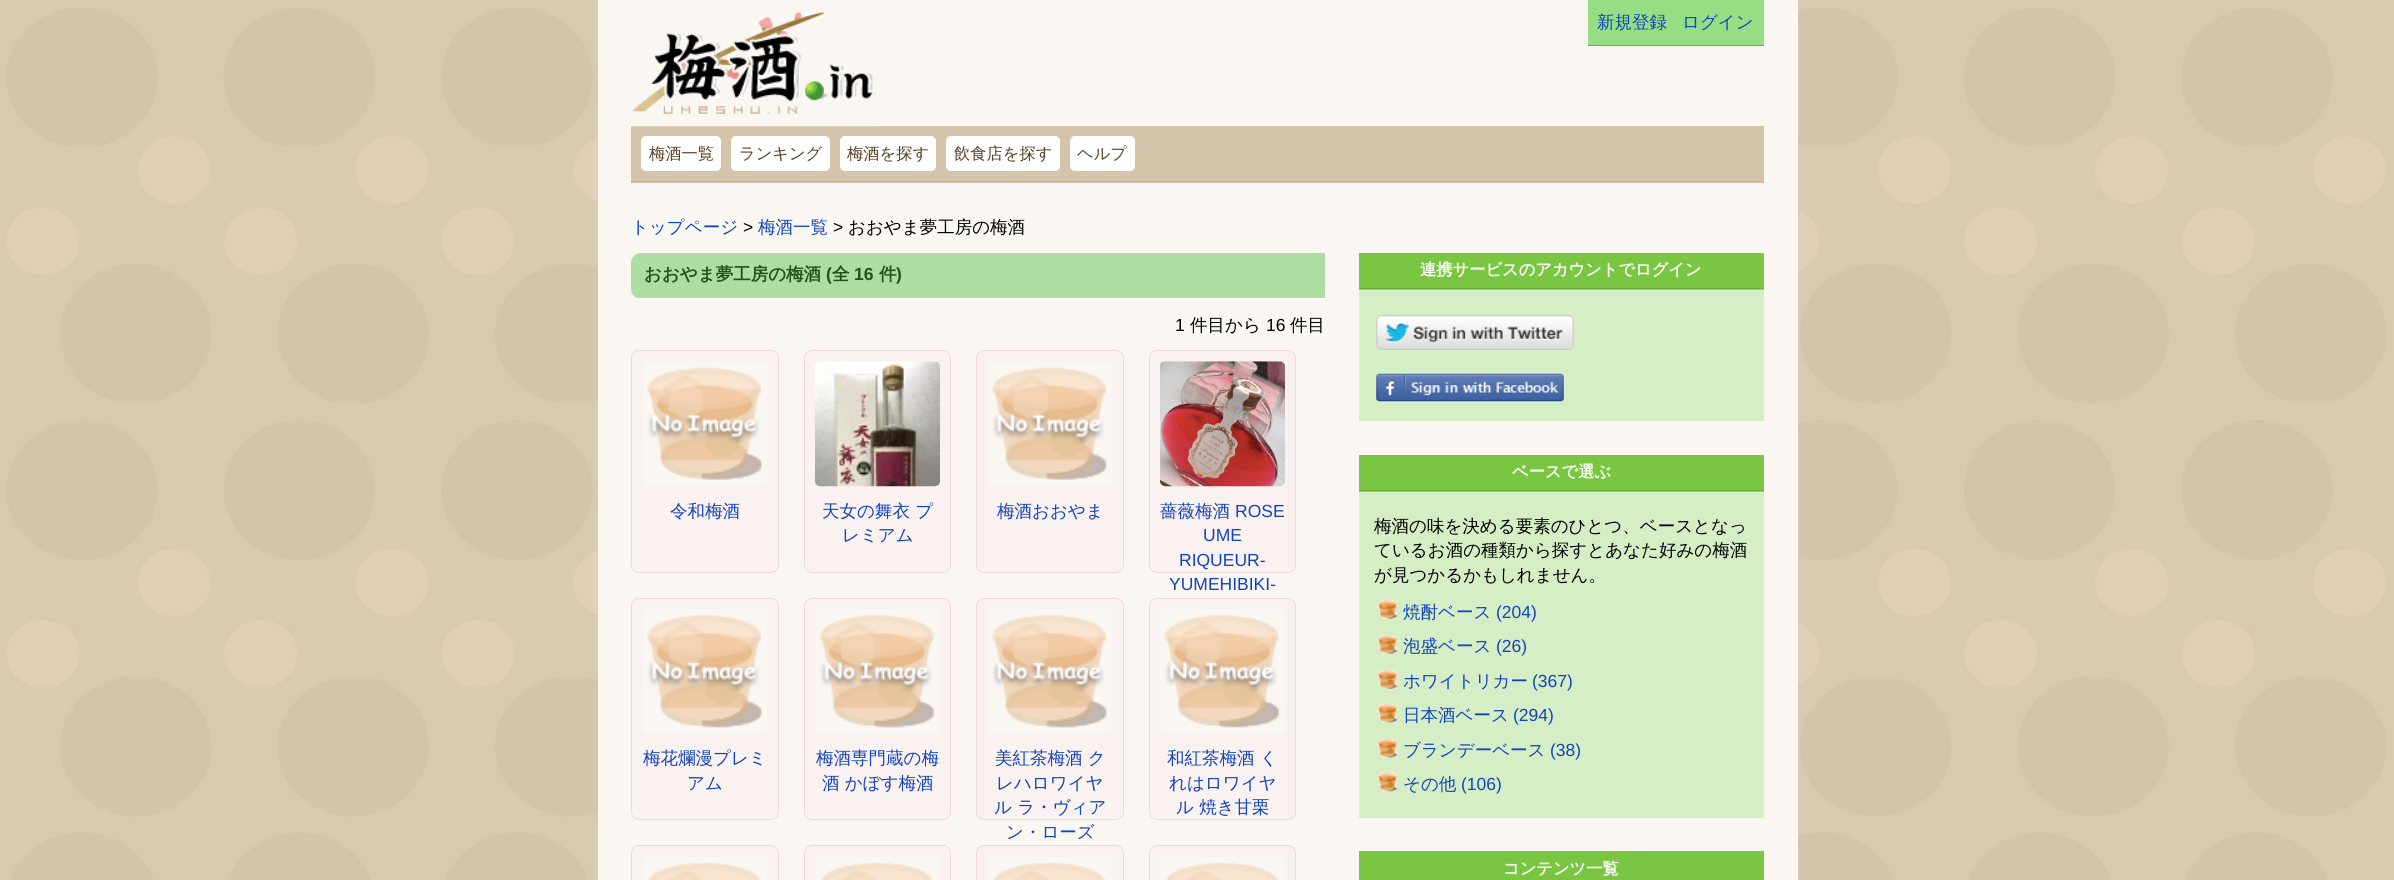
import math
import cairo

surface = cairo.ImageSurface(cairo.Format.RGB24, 2394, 880)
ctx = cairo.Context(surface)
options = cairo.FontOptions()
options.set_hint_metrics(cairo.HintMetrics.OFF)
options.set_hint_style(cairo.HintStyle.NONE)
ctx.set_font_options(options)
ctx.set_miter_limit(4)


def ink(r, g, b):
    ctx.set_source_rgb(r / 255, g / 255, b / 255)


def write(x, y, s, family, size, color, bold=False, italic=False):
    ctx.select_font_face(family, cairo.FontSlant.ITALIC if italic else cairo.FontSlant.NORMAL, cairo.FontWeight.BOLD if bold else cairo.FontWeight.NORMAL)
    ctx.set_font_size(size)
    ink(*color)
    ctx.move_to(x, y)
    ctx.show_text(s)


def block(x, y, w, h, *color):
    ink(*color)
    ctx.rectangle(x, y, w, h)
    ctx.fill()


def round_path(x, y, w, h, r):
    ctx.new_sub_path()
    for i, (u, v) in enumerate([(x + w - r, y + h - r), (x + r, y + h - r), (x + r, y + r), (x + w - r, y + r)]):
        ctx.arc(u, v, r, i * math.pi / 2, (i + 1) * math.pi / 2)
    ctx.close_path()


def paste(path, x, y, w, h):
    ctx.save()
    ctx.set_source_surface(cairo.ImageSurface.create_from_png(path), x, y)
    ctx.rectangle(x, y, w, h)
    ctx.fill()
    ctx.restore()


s1 = dict(family="WenQuanYi Zen Hei Medium", size=17.5, color=(17, 68, 187))
s2 = dict(family="WenQuanYi Zen Hei Medium", size=16.25, color=(84, 64, 34))
s3 = dict(family="Liberation Sans", size=17.5, color=(0, 0, 0))
s4 = dict(family="WenQuanYi Zen Hei Medium", size=17.5, color=(0, 0, 0))
s5 = dict(family="WenQuanYi Zen Hei", size=17.5, color=(40, 80, 29), bold=True)
s6 = dict(family="Liberation Sans", size=17.5, color=(40, 80, 29), bold=True)
s7 = dict(family="Liberation Sans", size=17.5, color=(17, 68, 187))
s8 = dict(family="WenQuanYi Zen Hei", size=16.25, color=(251, 253, 249), bold=True)

ink(218, 202, 175)
ctx.paint()
paste("pic1.png", 6, 8, 2380, 872)
block(598, 0, 1200, 880, 250, 247, 242)
block(631, 126, 1133, 57, 212, 196, 170)
paste("pic2.png", 631, 12, 248, 115)
block(1588, 0, 176, 45, 150, 222, 131)
block(1588, 45, 176, 1, 89, 181, 64)
write(1597, 28, "新規登録", **s1)
write(1682, 28, "ログイン", **s1)
block(631, 181, 1133, 1, 205, 177, 134)
ink(255, 254, 254)
round_path(641, 136, 80, 35, 5)
ctx.fill()
write(649, 159, "梅酒一覧", **s2)
ink(255, 254, 254)
round_path(731, 136, 99, 35, 5)
ctx.fill()
write(739, 159, "ランキング", **s2)
ink(255, 254, 254)
round_path(840, 136, 96, 35, 5)
ctx.fill()
write(847, 159, "梅酒を探す", **s2)
ink(255, 254, 254)
round_path(946, 136, 114, 35, 5)
ctx.fill()
write(954, 159, "飲食店を探す", **s2)
ink(255, 254, 254)
round_path(1070, 136, 65, 35, 5)
ctx.fill()
write(1077, 159, "ヘルプ", **s2)
write(631, 233, "トップページ", **s1)
write(743, 233, ">", **s3)
write(758, 233, "梅酒一覧", **s1)
write(833, 233, ">", **s3)
write(848, 233, "おおやま夢工房の梅酒", **s4)
ink(173, 221, 160)
ctx.new_path()
ctx.move_to(641, 253)
ctx.line_to(1325, 253)
ctx.line_to(1325, 299)
ctx.line_to(641, 299)
ctx.curve_to(635.5, 299, 631, 294.5, 631, 289)
ctx.line_to(631, 263)
ctx.curve_to(631, 257.5, 635.5, 253, 641, 253)
ctx.close_path()
ctx.fill()
block(636, 298, 689, 1, 255, 255, 255)
write(644, 280, "おおやま夢工房の梅酒", **s5)
write(826, 280, "(", **s6)
write(832, 280, "全", **s5)
write(854, 280, "16", **s6)
write(879, 280, "件", **s5)
write(896, 280, ")", **s6)
write(1175, 331, "1", **s3)
write(1190, 331, "件目から", **s4)
write(1266, 331, "16", **s3)
write(1290, 331, "件目", **s4)
ink(250, 241, 241)
round_path(631.5, 350.5, 147, 222, 7.5)
ctx.fill_preserve()
ink(241, 216, 216)
ctx.set_line_width(1)
ctx.stroke()
paste("pic3.png", 643, 362, 124, 124)
write(670, 517, "令和梅酒", **s1)
ink(250, 241, 241)
round_path(804.5, 350.5, 146, 222, 7.5)
ctx.fill_preserve()
ink(241, 216, 216)
ctx.stroke()
paste("pic4.png", 815, 361, 125, 126)
write(822, 517, "天女の舞衣 プ", **s1)
write(842, 541, "レミアム", **s1)
ink(250, 241, 241)
round_path(976.5, 350.5, 147, 222, 7.5)
ctx.fill_preserve()
ink(241, 216, 216)
ctx.stroke()
paste("pic3.png", 988, 362, 124, 124)
write(997, 517, "梅酒おおやま", **s1)
ink(250, 241, 241)
round_path(1149.5, 350.5, 146, 222, 7.5)
ctx.fill_preserve()
ink(241, 216, 216)
ctx.stroke()
paste("pic5.png", 1160, 361, 125, 126)
write(1160, 517, "薔薇梅酒", **s1)
write(1235, 517, "ROSE", **s7)
write(1203, 541, "UME", **s7)
write(1179, 566, "RIQUEUR-", **s7)
write(1169, 590, "YUMEHIBIKI-", **s7)
ink(250, 241, 241)
round_path(631.5, 598.5, 147, 221, 7.5)
ctx.fill_preserve()
ink(241, 216, 216)
ctx.stroke()
paste("pic6.png", 643, 609, 124, 124)
write(643, 764, "梅花爛漫プレミ", **s1)
write(687, 789, "アム", **s1)
ink(250, 241, 241)
round_path(804.5, 598.5, 146, 221, 7.5)
ctx.fill_preserve()
ink(241, 216, 216)
ctx.stroke()
paste("pic7.png", 815, 609, 125, 124)
write(816, 764, "梅酒専門蔵の梅", **s1)
write(822, 789, "酒 かぼす梅酒", **s1)
ink(250, 241, 241)
round_path(976.5, 598.5, 147, 221, 7.5)
ctx.fill_preserve()
ink(241, 216, 216)
ctx.stroke()
paste("pic6.png", 988, 609, 124, 124)
write(995, 764, "美紅茶梅酒 ク", **s1)
write(996, 789, "レハロワイヤ", **s1)
write(994, 813, "ル ラ・ヴィア", **s1)
write(1006, 838, "ン・ローズ", **s1)
ink(250, 241, 241)
round_path(1149.5, 598.5, 146, 221, 7.5)
ctx.fill_preserve()
ink(241, 216, 216)
ctx.stroke()
paste("pic7.png", 1160, 609, 125, 124)
write(1167, 764, "和紅茶梅酒 く", **s1)
write(1169, 789, "れはロワイヤ", **s1)
write(1176, 813, "ル 焼き甘栗", **s1)
ink(250, 241, 241)
round_path(631.5, 845.5, 147, 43, 7.5)
ctx.fill_preserve()
ink(241, 216, 216)
ctx.stroke()
paste("pic8.png", 643, 857, 124, 23)
ink(250, 241, 241)
round_path(804.5, 845.5, 146, 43, 7.5)
ctx.fill_preserve()
ink(241, 216, 216)
ctx.stroke()
paste("pic9.png", 815, 857, 125, 23)
ink(250, 241, 241)
round_path(976.5, 845.5, 147, 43, 7.5)
ctx.fill_preserve()
ink(241, 216, 216)
ctx.stroke()
paste("pic8.png", 988, 857, 124, 23)
ink(250, 241, 241)
round_path(1149.5, 845.5, 146, 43, 7.5)
ctx.fill_preserve()
ink(241, 216, 216)
ctx.stroke()
paste("pic9.png", 1160, 857, 125, 23)
block(1359, 253, 405, 35, 122, 198, 66)
block(1359, 288, 405, 1, 106, 177, 53)
write(1420, 275, "連携サービスのアカウントでログイン", **s8)
block(1359, 290, 405, 131, 214, 238, 197)
block(1359, 289, 405, 1, 150, 210, 105)
paste("pic10.png", 1376, 315, 198, 35)
paste("pic11.png", 1376, 373, 188, 29)
block(1359, 455, 405, 35, 122, 198, 66)
block(1359, 490, 405, 1, 106, 177, 53)
write(1512, 477, "ベースで選ぶ", **s8)
block(1359, 492, 405, 326, 214, 238, 197)
block(1359, 491, 405, 1, 150, 210, 105)
write(1374, 532, "梅酒の味を決める要素のひとつ、ベースとなっ", **s4)
write(1374, 556, "ているお酒の種類から探すとあなた好みの梅酒", **s4)
write(1374, 581, "が見つかるかもしれません。", **s4)
paste("pic12.png", 1377, 600, 21, 19)
write(1403, 618, "焼酎ベース", **s1)
write(1496, 618, "(204)", **s7)
paste("pic12.png", 1377, 635, 21, 19)
write(1403, 652, "泡盛ベース", **s1)
write(1496, 652, "(26)", **s7)
paste("pic12.png", 1377, 670, 21, 19)
write(1403, 687, "ホワイトリカー", **s1)
write(1532, 687, "(367)", **s7)
paste("pic13.png", 1377, 703, 21, 20)
write(1403, 721, "日本酒ベース", **s1)
write(1513, 721, "(294)", **s7)
paste("pic13.png", 1377, 738, 21, 20)
write(1403, 756, "ブランデーベース", **s1)
write(1550, 756, "(38)", **s7)
paste("pic14.png", 1377, 772, 21, 20)
write(1403, 790, "その他", **s1)
write(1461, 790, "(106)", **s7)
block(1359, 851, 405, 29, 122, 198, 66)
write(1503, 874, "コンテンツ一覧", **s8)
surface.write_to_png("screenshot.png")
